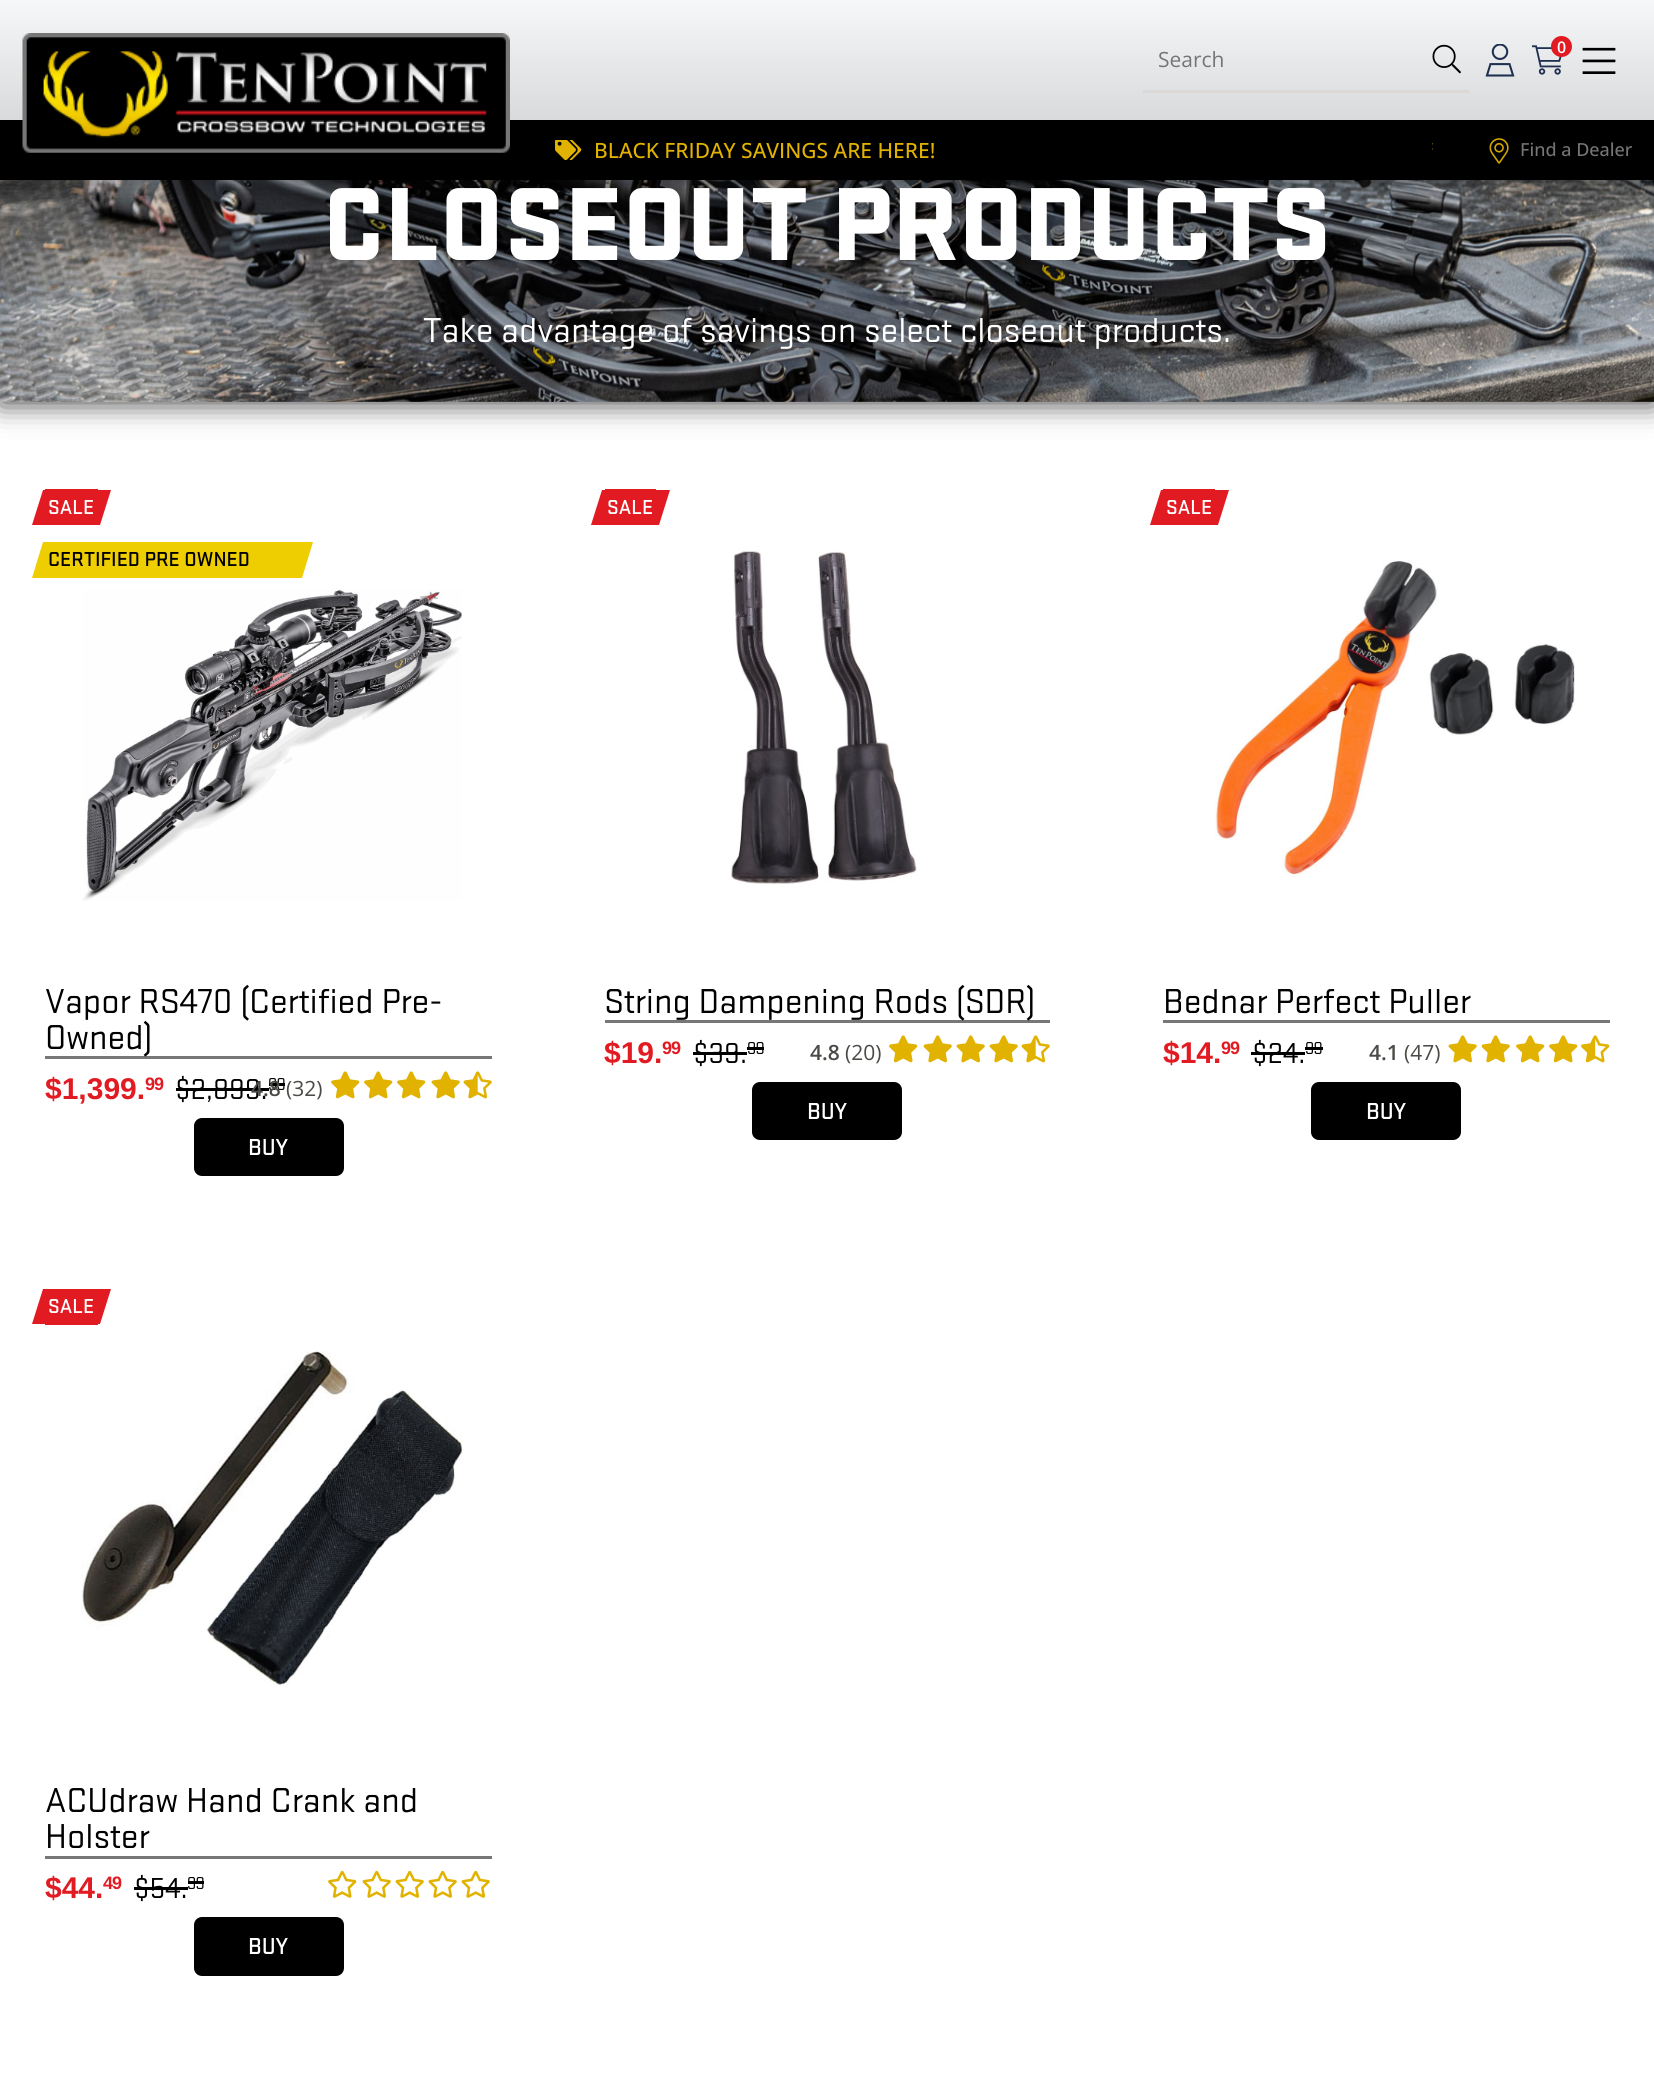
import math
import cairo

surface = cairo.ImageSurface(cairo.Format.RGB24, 1654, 2099)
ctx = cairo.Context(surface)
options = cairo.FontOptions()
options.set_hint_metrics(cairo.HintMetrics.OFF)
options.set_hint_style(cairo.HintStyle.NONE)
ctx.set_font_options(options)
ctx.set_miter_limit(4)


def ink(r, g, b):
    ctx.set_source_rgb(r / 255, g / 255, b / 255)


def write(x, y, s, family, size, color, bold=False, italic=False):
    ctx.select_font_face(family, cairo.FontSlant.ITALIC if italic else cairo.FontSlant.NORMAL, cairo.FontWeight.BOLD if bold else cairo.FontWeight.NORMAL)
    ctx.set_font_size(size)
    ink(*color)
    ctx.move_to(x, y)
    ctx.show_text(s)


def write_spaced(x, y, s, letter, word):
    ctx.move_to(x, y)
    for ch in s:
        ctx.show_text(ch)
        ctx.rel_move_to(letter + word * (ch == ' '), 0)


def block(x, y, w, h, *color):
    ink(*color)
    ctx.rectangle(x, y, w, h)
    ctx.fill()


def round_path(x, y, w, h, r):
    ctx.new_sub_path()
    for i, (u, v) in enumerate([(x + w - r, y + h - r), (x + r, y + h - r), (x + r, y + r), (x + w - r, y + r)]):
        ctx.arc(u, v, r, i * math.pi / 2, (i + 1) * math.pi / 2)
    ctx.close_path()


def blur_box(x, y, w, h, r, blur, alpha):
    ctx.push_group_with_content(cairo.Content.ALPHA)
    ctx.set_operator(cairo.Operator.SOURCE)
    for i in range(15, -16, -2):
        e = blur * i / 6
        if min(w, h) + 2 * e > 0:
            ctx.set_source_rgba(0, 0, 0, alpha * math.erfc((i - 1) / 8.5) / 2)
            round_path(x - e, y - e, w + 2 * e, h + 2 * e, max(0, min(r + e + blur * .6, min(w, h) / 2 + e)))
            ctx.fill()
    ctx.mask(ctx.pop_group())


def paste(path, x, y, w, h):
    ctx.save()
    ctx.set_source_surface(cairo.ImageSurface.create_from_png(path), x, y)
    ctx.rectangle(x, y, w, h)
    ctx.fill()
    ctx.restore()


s1 = dict(family="Open Sans", size=21, color=(117, 117, 117))
s2 = dict(family="Open Sans SemiBold", size=16, color=(255, 255, 255))
s3 = dict(family="Open Sans Medium", size=21, color=(225, 178, 0))
s4 = dict(family="Open Sans Medium", size=18, color=(117, 117, 117))
s5 = dict(family="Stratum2 Black", size=108, color=(255, 255, 255))
s6 = dict(family="Stratum2", size=36, color=(255, 255, 255))
s7 = dict(family="Stratum2 Medium", size=21, color=(255, 255, 255))
s8 = dict(family="Stratum2 Medium", size=21, color=(0, 0, 0))
s9 = dict(family="Stratum2", size=36, color=(0, 0, 0))
s10 = dict(family="Liberation Sans", size=30, color=(226, 26, 34), bold=True)
s11 = dict(family="Stratum2", size=30, color=(0, 0, 0))
s12 = dict(family="Open Sans SemiBold", size=21, color=(74, 74, 70))
s13 = dict(family="Open Sans", size=21, color=(74, 74, 70))
s14 = dict(family="Stratum2 Medium", size=24, color=(255, 255, 255))

ink(255, 255, 255)
ctx.paint()
ink(0, 0, 0)
blur_box(0, 132, 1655, 270, 0, 15, 0.8)
paste("pic9.png", 0, 180, 1654, 222)
blur_box(0, 8, 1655, 180, 0, 15, 0.4)
gradient = cairo.LinearGradient(827, 0, 827, 120)
gradient.add_color_stop_rgba(0, 0.965, 0.969, 0.976, 1)
gradient.add_color_stop_rgba(1, 0.851, 0.855, 0.863, 1)
ctx.set_source(gradient)
ctx.rectangle(0, 0, 1654, 120)
ctx.fill()
block(0, 120, 1654, 60, 0, 0, 0)
paste("pic1.png", 22, 33, 488, 120)
block(1143, 90, 326, 3, 219, 216, 216)
write(1158, 67, "Search", **s1)
paste("pic2.png", 1432, 44, 29, 30)
paste("pic3.png", 1485, 44, 30, 33)
paste("pic4.png", 1532, 45, 30, 30)
ink(226, 26, 34)
ctx.arc(1561.5, 46.5, 10.5, 0, 2 * math.pi)
ctx.fill()
write(1557, 53, "0", **s2)
paste("pic5.png", 1582, 47, 34, 27)
paste("pic6.png", 555, 140, 27, 21)
write(594, 158, "BLACK FRIDAY SAVINGS ARE HERE!", **s3)
paste("pic7.png", 1432, 143, 1, 7)
paste("pic8.png", 1489, 138, 20, 26)
write(1520, 156, "Find a Dealer", **s4)
write(323, 260, "CLOSEOUT PRODUCTS", **s5)
write(423, 342, "Take advantage of savings on select closeout products.", **s6)
block(45, 489, 53, 1, 226, 26, 34)
ctx.new_path()
ctx.move_to(43, 490)
ctx.line_to(111, 490)
ctx.line_to(100, 525)
ctx.line_to(32, 525)
ctx.close_path()
ctx.fill()
write(48, 514, "SALE", **s7)
ink(238, 205, 1)
ctx.new_path()
ctx.move_to(43, 542)
ctx.line_to(313, 542)
ctx.line_to(302, 578)
ctx.line_to(32, 578)
ctx.close_path()
ctx.fill()
write(48, 566, "CERTIFIED PRE OWNED", **s8)
block(45, 1056, 447, 3, 119, 119, 119)
write(45, 1013, "Vapor RS470 (Certified Pre-", **s9)
write(45, 1049, "Owned)", **s9)
write(45, 1099, "$1,399.", **s10)
ctx.set_font_size(18)
write_spaced(145, 1090, "99", -1, 0)
write(175, 1099, "$2,899.", **s11)
block(176, 1088, 93, 3, 0, 0, 0)
ctx.set_font_size(18)
write_spaced(268, 1090, "99", -1, 0)
block(269, 1083, 16, 3, 0, 0, 0)
paste("pic10.png", 83, 589, 379, 312)
write(251, 1096, "4.8", **s12)
write(286, 1096, "(32)", **s13)
paste("pic11.png", 331, 1071, 29, 28)
paste("pic11.png", 364, 1071, 29, 28)
paste("pic11.png", 397, 1071, 29, 28)
paste("pic12.png", 431, 1071, 29, 28)
paste("pic13.png", 463, 1071, 29, 28)
ink(0, 0, 0)
round_path(194, 1118, 150, 58, 8)
ctx.fill()
write(248, 1155, "BUY", **s14)
block(605, 489, 51, 1, 226, 26, 34)
ctx.new_path()
ctx.move_to(602, 490)
ctx.line_to(670, 490)
ctx.line_to(659, 525)
ctx.line_to(591, 525)
ctx.close_path()
ctx.fill()
write(607, 514, "SALE", **s7)
block(605, 1020, 445, 3, 119, 119, 119)
write(604, 1013, "String Dampening Rods (SDR)", **s9)
write(604, 1063, "$19.", **s10)
ctx.set_font_size(18)
write_spaced(662, 1054, "99", -1, 0)
write(693, 1063, "$39.", **s11)
block(693, 1052, 54, 3, 0, 0, 0)
ctx.set_font_size(18)
write_spaced(747, 1054, "99", -1, 0)
block(747, 1047, 17, 3, 0, 0, 0)
paste("pic14.png", 731, 549, 186, 335)
write(810, 1060, "4.8", **s12)
write(845, 1060, "(20)", **s13)
paste("pic11.png", 889, 1035, 29, 28)
paste("pic12.png", 923, 1035, 29, 28)
paste("pic12.png", 956, 1035, 29, 28)
paste("pic12.png", 989, 1035, 29, 28)
paste("pic13.png", 1021, 1035, 29, 28)
ink(0, 0, 0)
round_path(752, 1082, 150, 58, 8)
ctx.fill()
write(807, 1119, "BUY", **s14)
block(1163, 489, 52, 1, 226, 26, 34)
ctx.new_path()
ctx.move_to(1161, 490)
ctx.line_to(1229, 490)
ctx.line_to(1218, 525)
ctx.line_to(1150, 525)
ctx.close_path()
ctx.fill()
write(1166, 514, "SALE", **s7)
block(1163, 1020, 447, 3, 119, 119, 119)
write(1163, 1013, "Bednar Perfect Puller", **s9)
write(1163, 1063, "$14.", **s10)
ctx.set_font_size(18)
write_spaced(1221, 1054, "99", -1, 0)
write(1252, 1063, "$24.", **s11)
block(1251, 1052, 54, 3, 0, 0, 0)
ctx.set_font_size(18)
write_spaced(1305, 1054, "99", -1, 0)
block(1305, 1047, 18, 3, 0, 0, 0)
paste("pic15.png", 1215, 560, 360, 317)
write(1369, 1060, "4.1", **s12)
write(1404, 1060, "(47)", **s13)
paste("pic12.png", 1448, 1035, 29, 28)
paste("pic12.png", 1481, 1035, 29, 28)
paste("pic11.png", 1516, 1035, 29, 28)
paste("pic11.png", 1549, 1035, 29, 28)
paste("pic16.png", 1581, 1035, 29, 28)
ink(0, 0, 0)
round_path(1311, 1082, 150, 58, 8)
ctx.fill()
write(1366, 1119, "BUY", **s14)
block(45, 1324, 53, 1, 226, 26, 34)
ctx.new_path()
ctx.move_to(43, 1289)
ctx.line_to(111, 1289)
ctx.line_to(100, 1324)
ctx.line_to(32, 1324)
ctx.close_path()
ctx.fill()
write(48, 1313, "SALE", **s7)
block(45, 1856, 447, 3, 119, 119, 119)
write(45, 1812, "ACUdraw Hand Crank and", **s9)
write(45, 1848, "Holster", **s9)
write(45, 1898, "$44.", **s10)
ctx.set_font_size(18)
write_spaced(103, 1889, "49", -1, 0)
write(134, 1898, "$54.", **s11)
block(134, 1887, 54, 3, 0, 0, 0)
ctx.set_font_size(18)
write_spaced(187, 1889, "99", -1, 0)
block(188, 1881, 16, 3, 0, 0, 0)
paste("pic17.png", 81, 1351, 382, 334)
paste("pic18.png", 328, 1870, 29, 28)
paste("pic19.png", 362, 1870, 29, 28)
paste("pic19.png", 395, 1870, 29, 28)
paste("pic19.png", 428, 1870, 29, 28)
paste("pic19.png", 461, 1870, 29, 28)
round_path(194, 1917, 150, 59, 8)
ctx.fill()
write(248, 1954, "BUY", **s14)
surface.write_to_png("screenshot.png")
